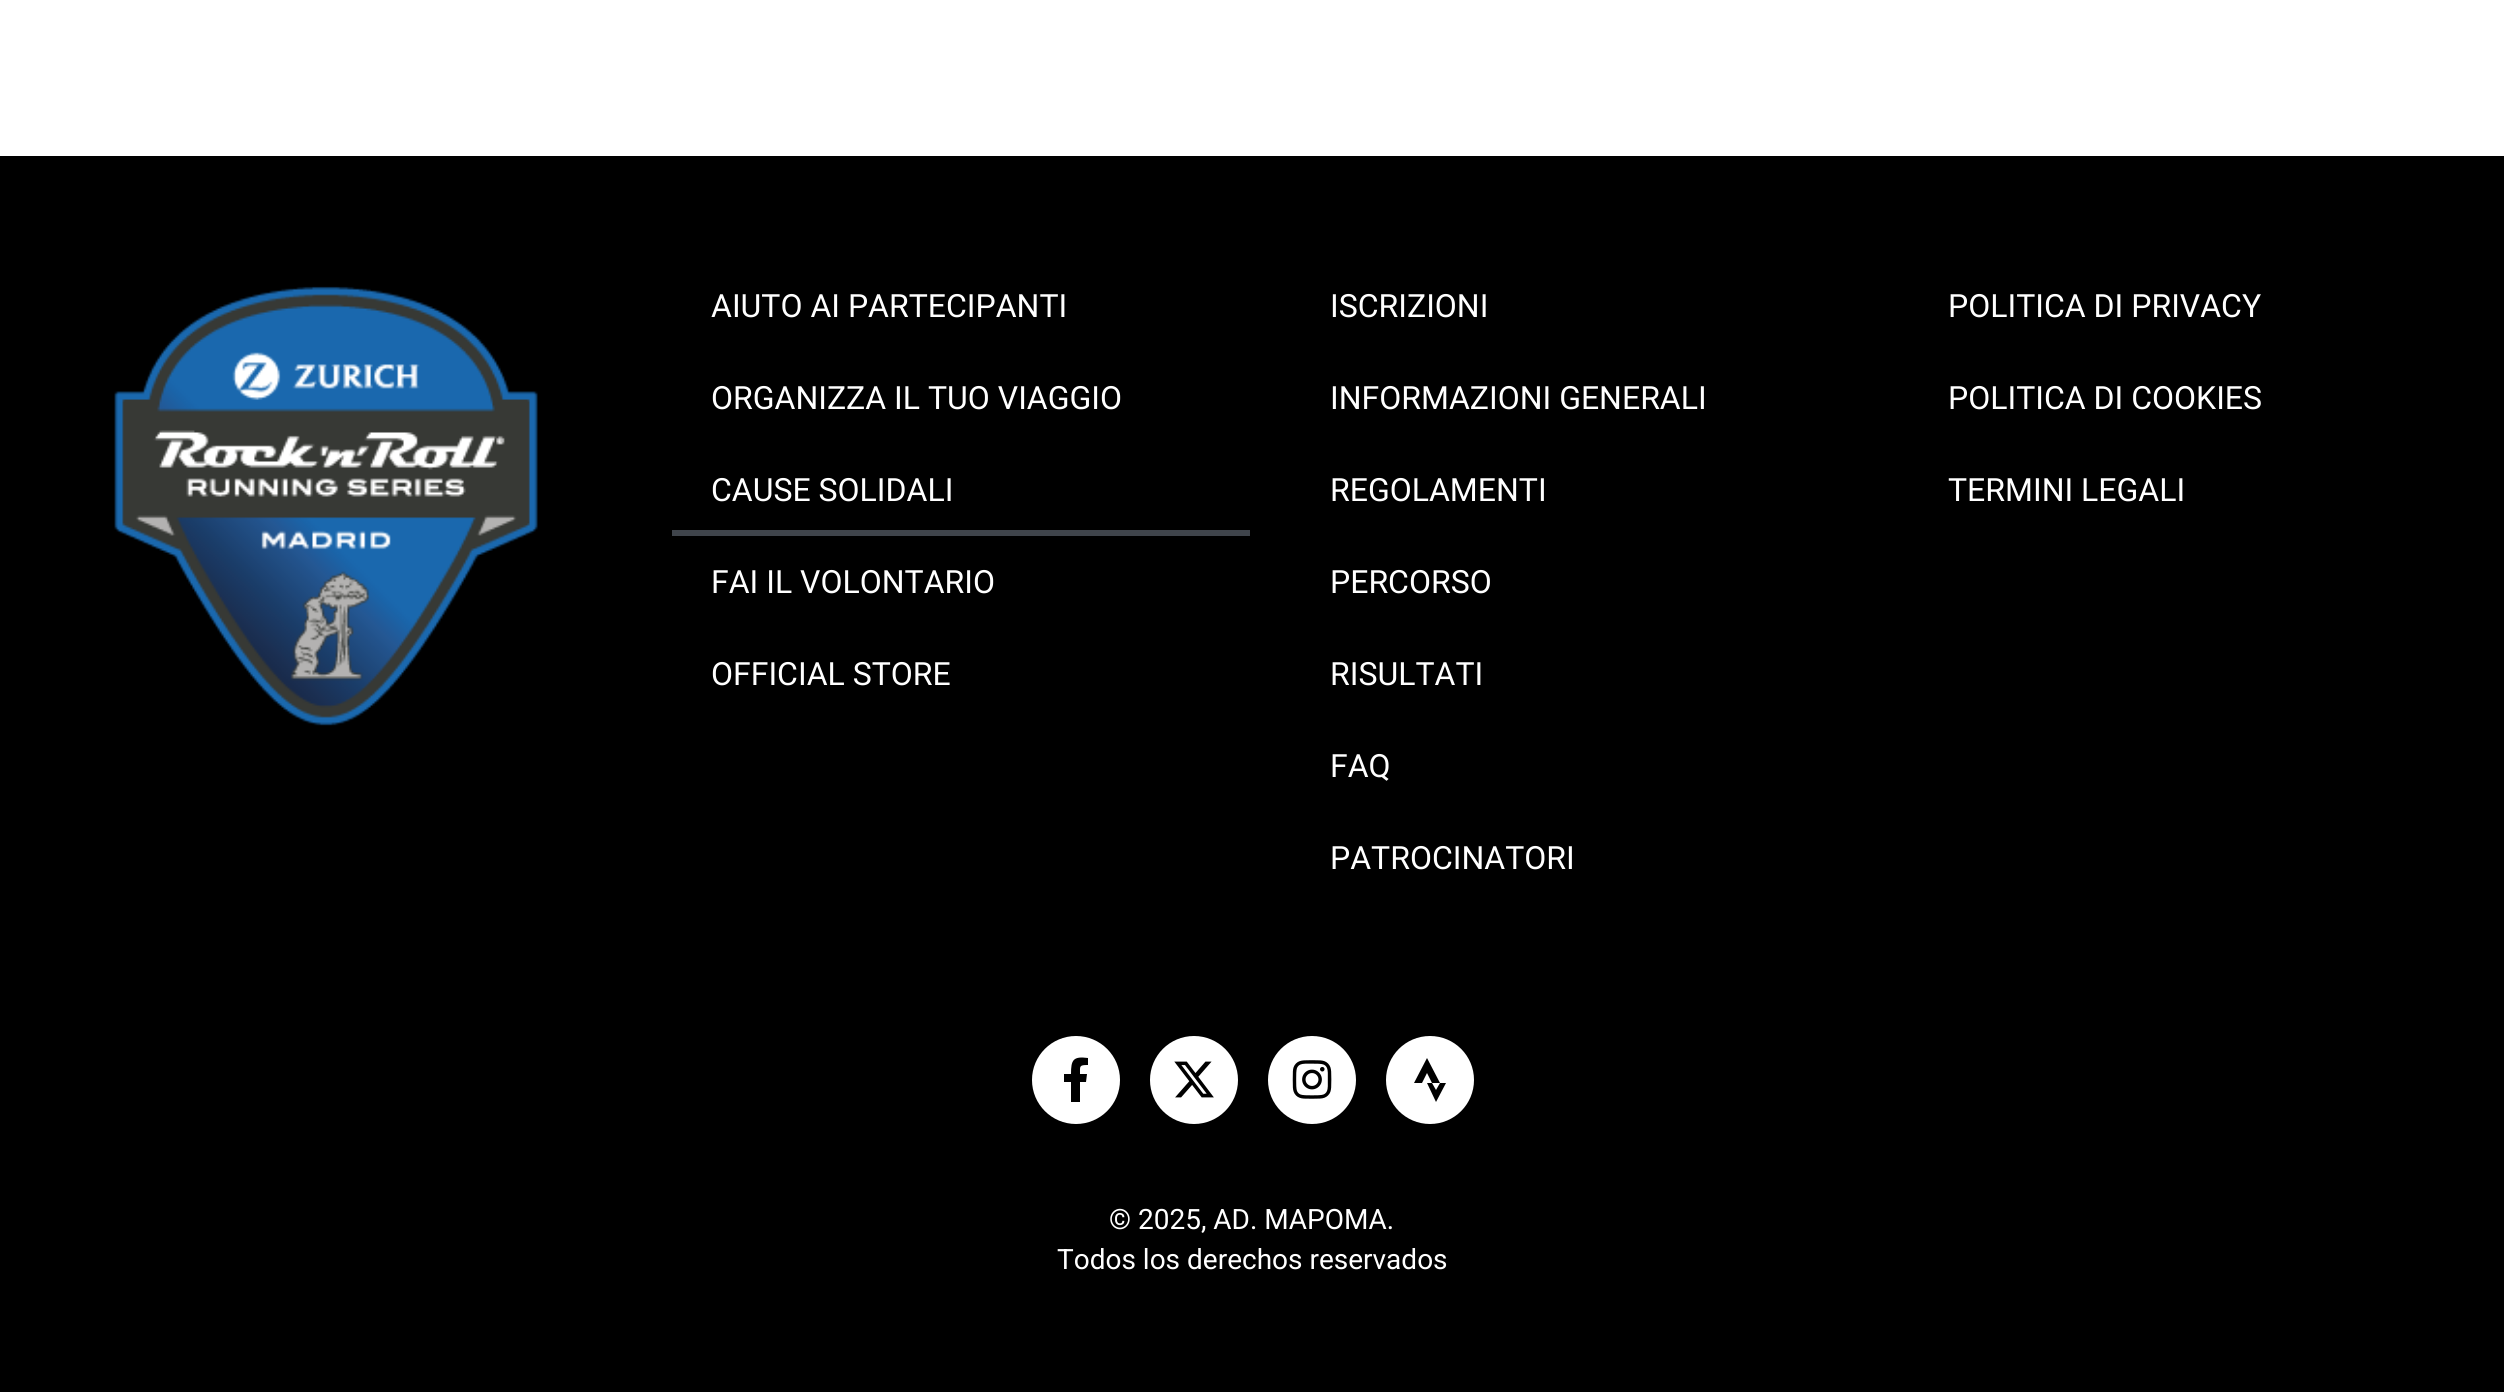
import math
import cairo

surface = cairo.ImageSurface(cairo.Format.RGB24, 2504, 1392)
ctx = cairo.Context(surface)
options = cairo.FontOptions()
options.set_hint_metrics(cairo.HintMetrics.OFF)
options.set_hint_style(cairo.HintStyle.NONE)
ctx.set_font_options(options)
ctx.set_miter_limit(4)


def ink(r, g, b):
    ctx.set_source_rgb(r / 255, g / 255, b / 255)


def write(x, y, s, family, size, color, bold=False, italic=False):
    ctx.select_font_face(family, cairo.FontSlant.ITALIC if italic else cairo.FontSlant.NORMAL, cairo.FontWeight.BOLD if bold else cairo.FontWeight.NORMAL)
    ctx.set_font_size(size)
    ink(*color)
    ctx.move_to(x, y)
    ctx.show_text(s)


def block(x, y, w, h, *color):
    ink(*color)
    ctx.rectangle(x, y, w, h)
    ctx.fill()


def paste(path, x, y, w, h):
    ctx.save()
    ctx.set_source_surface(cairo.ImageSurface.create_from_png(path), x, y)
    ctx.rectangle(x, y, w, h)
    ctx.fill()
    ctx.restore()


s1 = dict(family="Roboto", size=32, color=(255, 255, 255))
s2 = dict(family="Roboto", size=28, color=(255, 255, 255))

ink(255, 255, 255)
ctx.paint()
block(0, 156, 2504, 1236, 0, 0, 0)
paste("pic1.png", 114, 286, 424, 440)
write(711, 317, "AIUTO AI PARTECIPANTI", **s1)
write(711, 409, "ORGANIZZA IL TUO VIAGGIO", **s1)
write(711, 501, "CAUSE SOLIDALI", **s1)
block(672, 530, 578, 6, 63, 68, 75)
write(711, 593, "FAI IL VOLONTARIO", **s1)
write(711, 685, "OFFICIAL STORE", **s1)
write(1330, 317, "ISCRIZIONI", **s1)
write(1330, 409, "INFORMAZIONI GENERALI", **s1)
write(1330, 501, "REGOLAMENTI", **s1)
write(1330, 593, "PERCORSO", **s1)
write(1330, 685, "RISULTATI", **s1)
write(1330, 777, "FAQ", **s1)
write(1330, 869, "PATROCINATORI", **s1)
write(1948, 317, "POLITICA DI PRIVACY", **s1)
write(1948, 409, "POLITICA DI COOKIES", **s1)
write(1948, 501, "TERMINI LEGALI", **s1)
ctx.new_path()
ctx.arc(1076, 1080, 44, 0, 2 * math.pi)
ctx.fill()
ink(0, 0, 0)
ctx.new_path()
ctx.move_to(1086, 1082)
ctx.line_to(1080, 1082)
ctx.line_to(1080, 1102)
ctx.line_to(1071, 1102)
ctx.line_to(1071, 1082)
ctx.line_to(1064, 1082)
ctx.line_to(1064, 1074)
ctx.line_to(1071, 1074)
ctx.curve_to(1071, 1060, 1073, 1056, 1088, 1058)
ctx.line_to(1088, 1065)
ctx.curve_to(1079, 1065, 1080, 1066, 1080, 1074)
ctx.line_to(1087, 1074)
ctx.close_path()
ctx.fill()
ink(255, 255, 255)
ctx.arc(1194, 1080, 44, 0, 2 * math.pi)
ctx.fill()
paste("pic2.png", 1174, 1061, 40, 37)
ctx.arc(1312, 1080, 44, 0, 2 * math.pi)
ctx.fill()
paste("pic3.png", 1292, 1060, 40, 39)
ctx.arc(1430, 1080, 44, 0, 2 * math.pi)
ctx.fill()
ink(0, 0, 0)
ctx.new_path()
ctx.move_to(1427, 1058)
ctx.line_to(1440, 1083)
ctx.line_to(1432, 1083)
ctx.line_to(1427, 1073)
ctx.line_to(1422, 1083)
ctx.line_to(1414, 1083)
ctx.close_path()
ctx.move_to(1440, 1083)
ctx.line_to(1446, 1083)
ctx.line_to(1436, 1102)
ctx.line_to(1427, 1083)
ctx.line_to(1432, 1083)
ctx.line_to(1436, 1090)
ctx.close_path()
ctx.fill()
write(1109, 1229, "© 2025, AD. MAPOMA.", **s2)
write(1057, 1269, "Todos los derechos reservados", **s2)
surface.write_to_png("screenshot.png")
